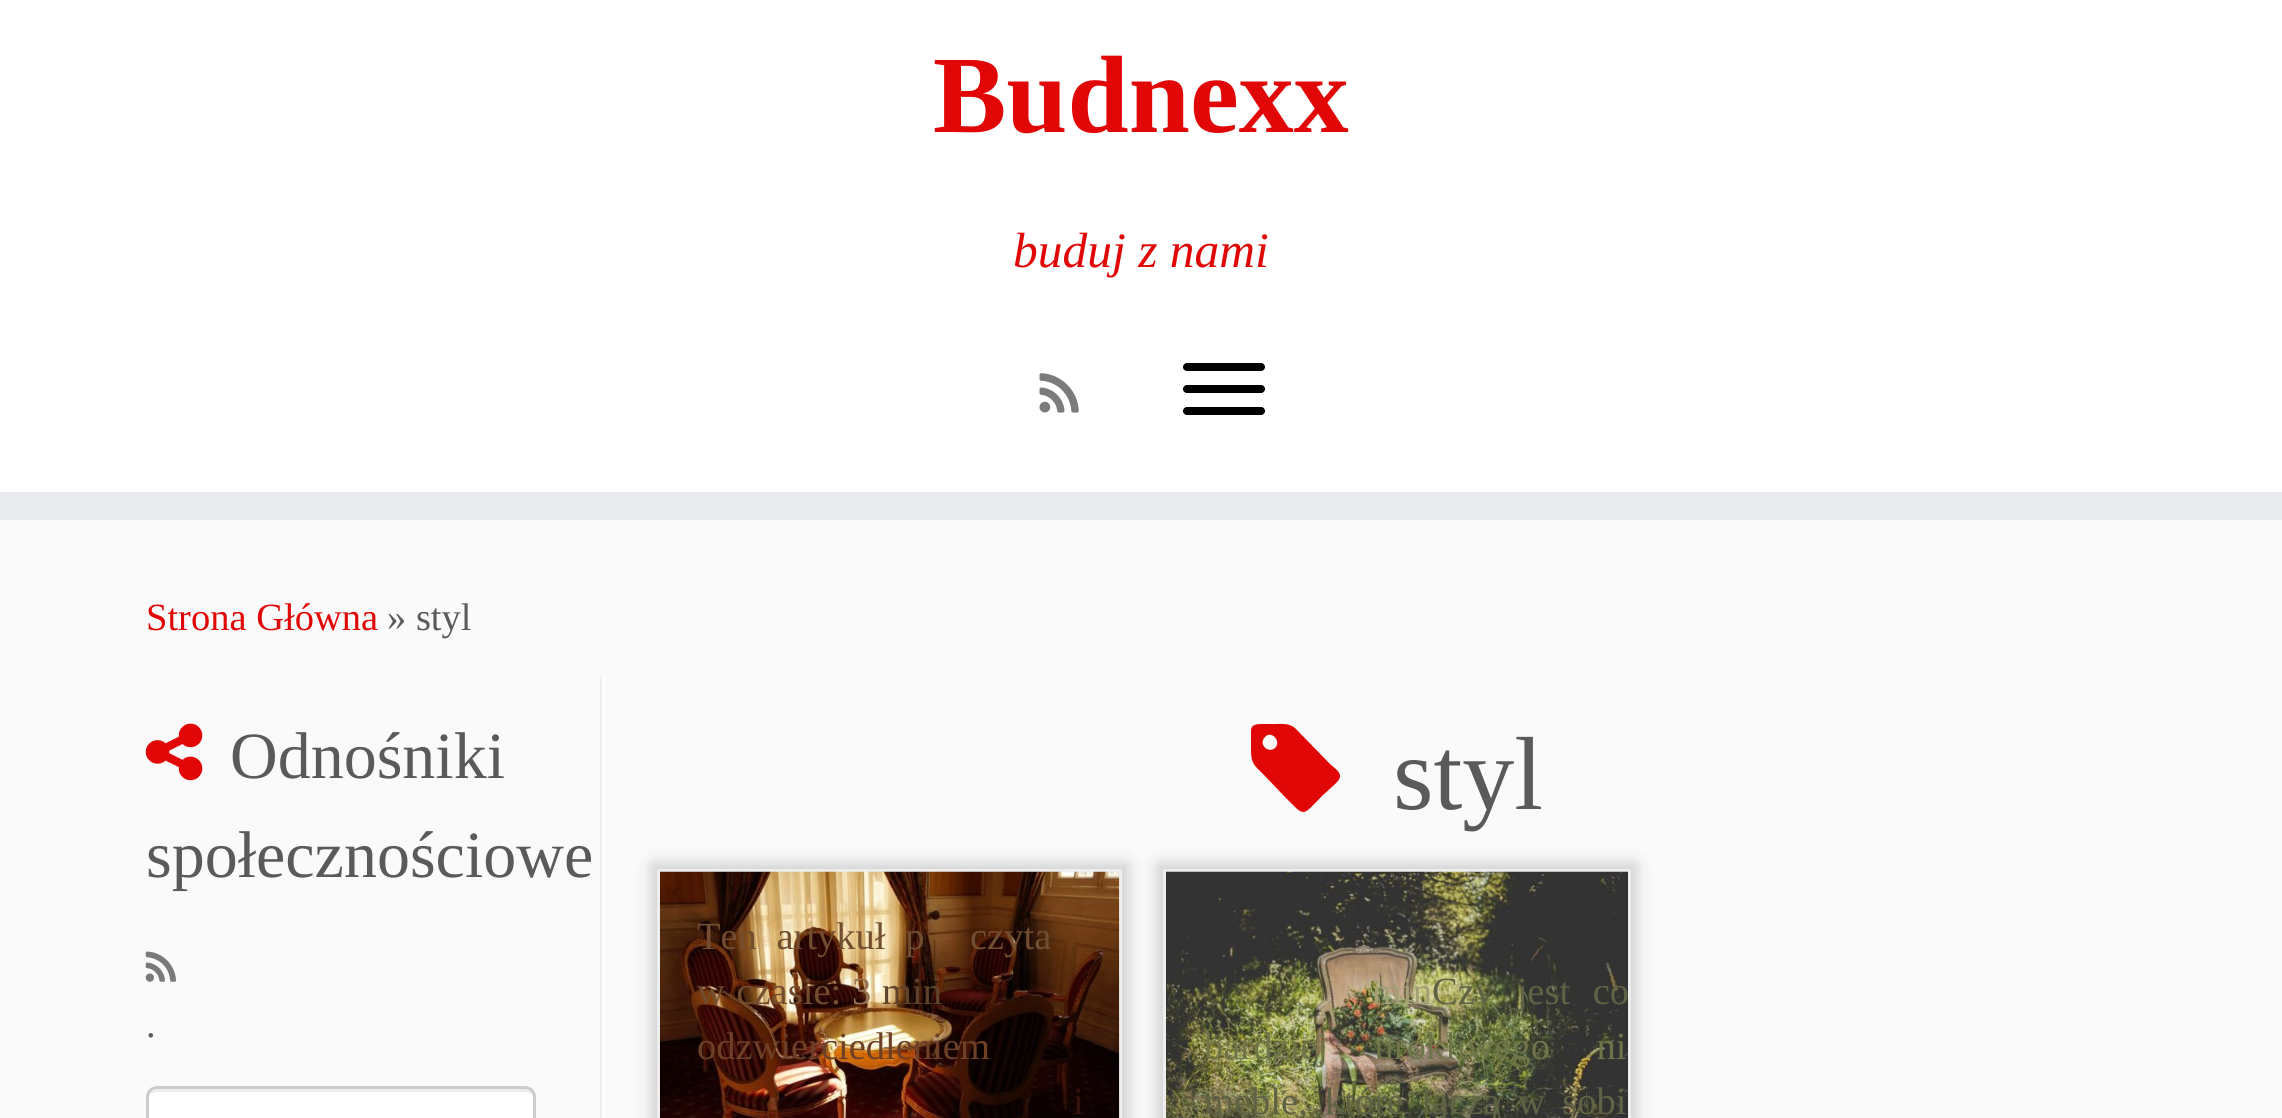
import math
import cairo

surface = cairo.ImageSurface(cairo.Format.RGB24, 2282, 1118)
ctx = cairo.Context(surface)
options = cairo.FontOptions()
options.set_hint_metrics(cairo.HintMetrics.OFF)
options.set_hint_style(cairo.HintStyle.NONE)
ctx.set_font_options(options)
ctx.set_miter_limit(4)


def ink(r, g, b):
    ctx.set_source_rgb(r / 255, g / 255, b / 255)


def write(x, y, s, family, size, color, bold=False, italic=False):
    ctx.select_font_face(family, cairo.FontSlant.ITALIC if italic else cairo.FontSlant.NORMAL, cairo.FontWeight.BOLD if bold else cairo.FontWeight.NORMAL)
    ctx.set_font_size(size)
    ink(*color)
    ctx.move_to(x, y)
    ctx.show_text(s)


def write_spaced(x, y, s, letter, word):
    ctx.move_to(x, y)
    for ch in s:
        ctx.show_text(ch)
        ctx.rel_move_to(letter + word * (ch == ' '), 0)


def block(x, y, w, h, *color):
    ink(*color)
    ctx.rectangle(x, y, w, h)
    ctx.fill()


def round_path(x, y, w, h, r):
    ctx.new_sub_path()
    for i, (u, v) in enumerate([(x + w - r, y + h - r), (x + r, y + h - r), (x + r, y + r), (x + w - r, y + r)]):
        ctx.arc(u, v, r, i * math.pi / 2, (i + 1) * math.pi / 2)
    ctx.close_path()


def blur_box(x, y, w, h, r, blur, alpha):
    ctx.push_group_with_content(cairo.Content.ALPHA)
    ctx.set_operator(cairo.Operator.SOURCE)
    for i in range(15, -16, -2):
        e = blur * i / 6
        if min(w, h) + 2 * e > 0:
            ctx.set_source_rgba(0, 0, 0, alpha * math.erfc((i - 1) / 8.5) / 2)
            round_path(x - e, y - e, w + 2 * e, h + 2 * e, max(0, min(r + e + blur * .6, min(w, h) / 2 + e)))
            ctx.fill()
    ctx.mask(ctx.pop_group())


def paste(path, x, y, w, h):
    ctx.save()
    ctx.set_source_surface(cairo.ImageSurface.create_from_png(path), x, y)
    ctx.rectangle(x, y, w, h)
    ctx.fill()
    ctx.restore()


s1 = dict(family="Liberation Serif", size=110, color=(225, 7, 7), bold=True)
s2 = dict(family="Liberation Serif", size=49.5, color=(225, 7, 7), italic=True)
s3 = dict(family="Liberation Serif", size=38.5, color=(225, 7, 7))
s4 = dict(family="Liberation Serif", size=38.5, color=(90, 90, 90))
s5 = dict(family="Liberation Serif", size=66, color=(90, 90, 90))
s6 = dict(family="Liberation Serif", size=104, color=(90, 90, 90))
s7 = dict(family="Liberation Serif", size=38.5, color=(151, 116, 84))
s8 = dict(family="Liberation Serif", size=38.5, color=(95, 67, 42))
s9 = dict(family="Liberation Serif", size=38.5, color=(110, 64, 38))
s10 = dict(family="Liberation Serif", size=38.5, color=(165, 160, 116))

ink(250, 250, 250)
ctx.paint()
block(0, 0, 2282, 492, 255, 255, 255)
block(0, 492, 2282, 28, 233, 234, 238)
write(933, 132, "Budnexx", **s1)
write(1013, 267, "buduj z nami", **s2)
paste("pic1.png", 1039, 373, 40, 40)
ink(0, 0, 0)
round_path(1183, 363, 82, 8, 4)
ctx.fill()
round_path(1183, 385, 82, 8, 4)
ctx.fill()
round_path(1183, 407, 82, 8, 4)
ctx.fill()
write(146, 630, "Strona Główna", **s3)
write(387, 630, "» styl", **s4)
block(600, 677, 2, 441, 238, 238, 238)
paste("pic2.png", 145, 723, 58, 58)
write(230, 778, "Odnośniki", **s5)
write(146, 877, "społecznościowe", **s5)
paste("pic3.png", 145, 951, 31, 31)
block(602, 677, 3, 441, 255, 255, 255)
write(146, 1037, ".", **s4)
ink(255, 255, 255)
round_path(146, 1086, 390, 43, 11)
ctx.fill()
ink(236, 236, 236)
ctx.new_path()
ctx.move_to(157, 1092)
ctx.line_to(525, 1092)
ctx.curve_to(530, 1092, 534, 1095, 534, 1100)
ctx.line_to(534, 1097)
ctx.curve_to(534, 1093, 530, 1089, 526, 1089)
ctx.line_to(157, 1089)
ctx.curve_to(153, 1089, 150, 1092, 149, 1096)
ctx.curve_to(151, 1093, 154, 1092, 157, 1092)
ctx.close_path()
ctx.fill()
round_path(147.5, 1087.5, 387, 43, 9.5)
ink(204, 204, 204)
ctx.set_line_width(3)
ctx.stroke()
ink(225, 7, 7)
ctx.new_path()
ctx.move_to(1275, 748)
ctx.curve_to(1282, 741, 1271, 730, 1265, 737)
ctx.curve_to(1258, 744, 1268, 754, 1275, 748)
ctx.close_path()
ctx.move_to(1340, 776)
ctx.curve_to(1340, 780, 1336, 783, 1333, 786)
ctx.line_to(1323, 795)
ctx.curve_to(1301, 817, 1306, 818, 1284, 796)
ctx.line_to(1264, 775)
ctx.curve_to(1255, 766, 1251, 764, 1251, 751)
ctx.line_to(1251, 731)
ctx.curve_to(1251, 724, 1257, 724, 1263, 724)
ctx.line_to(1275, 724)
ctx.curve_to(1282, 724, 1289, 723, 1295, 728)
ctx.line_to(1330, 764)
ctx.curve_to(1333, 767, 1340, 771, 1340, 776)
ctx.close_path()
ctx.fill()
write(1393, 809, "styl", **s6)
ink(204, 204, 204)
blur_box(652, 864, 476, 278, 0, 8, 1)
block(657, 869, 465, 3, 238, 238, 238)
ctx.new_path()
ctx.move_to(1122, 869)
ctx.line_to(1122, 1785)
ctx.line_to(1119, 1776)
ctx.line_to(1119, 872)
ctx.close_path()
ctx.fill()
ctx.new_path()
ctx.move_to(657, 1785)
ctx.line_to(657, 869)
ctx.line_to(660, 872)
ctx.line_to(660, 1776)
ctx.close_path()
ctx.fill()
paste("pic4.png", 660, 871, 460, 247)
ctx.set_font_size(38.5)
ink(114, 77, 47)
write_spaced(697, 949, "Ten artykuł p", 0, 10)
write_spaced(970, 949, "czyta", 0, 10)
write_spaced(697, 1004, "w czasie:", 0, 2)
write(852, 1004, "3", **s7)
write(882, 1004, "min", **s8)
write(697, 1059, "odzwierciedleniem", **s9)
ink(54, 18, 10)
write_spaced(1073, 1114, "i", 0, 20)
ink(204, 204, 204)
blur_box(1158, 864, 478, 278, 0, 8, 1)
block(1163, 869, 468, 3, 238, 238, 238)
ctx.new_path()
ctx.move_to(1631, 869)
ctx.line_to(1631, 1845)
ctx.line_to(1628, 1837)
ctx.line_to(1628, 872)
ctx.close_path()
ctx.fill()
ctx.new_path()
ctx.move_to(1163, 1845)
ctx.line_to(1163, 869)
ctx.line_to(1166, 872)
ctx.line_to(1166, 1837)
ctx.close_path()
ctx.fill()
paste("pic5.png", 1166, 871, 462, 247)
write(1372, 1004, "min", **s10)
ink(96, 98, 69)
write_spaced(1432, 1004, "Czy jest co", 0, 13)
ctx.save()
ctx.rectangle(1205, 910, 423, 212)
ctx.clip()
ink(112, 116, 73)
write_spaced(1204, 1059, "bardziej urokliwego ni", 0, 37)
ink(96, 98, 69)
write_spaced(1204, 1114, "meble, które łączą w sobi", 0, 7.5)
ctx.restore()
surface.write_to_png("screenshot.png")
